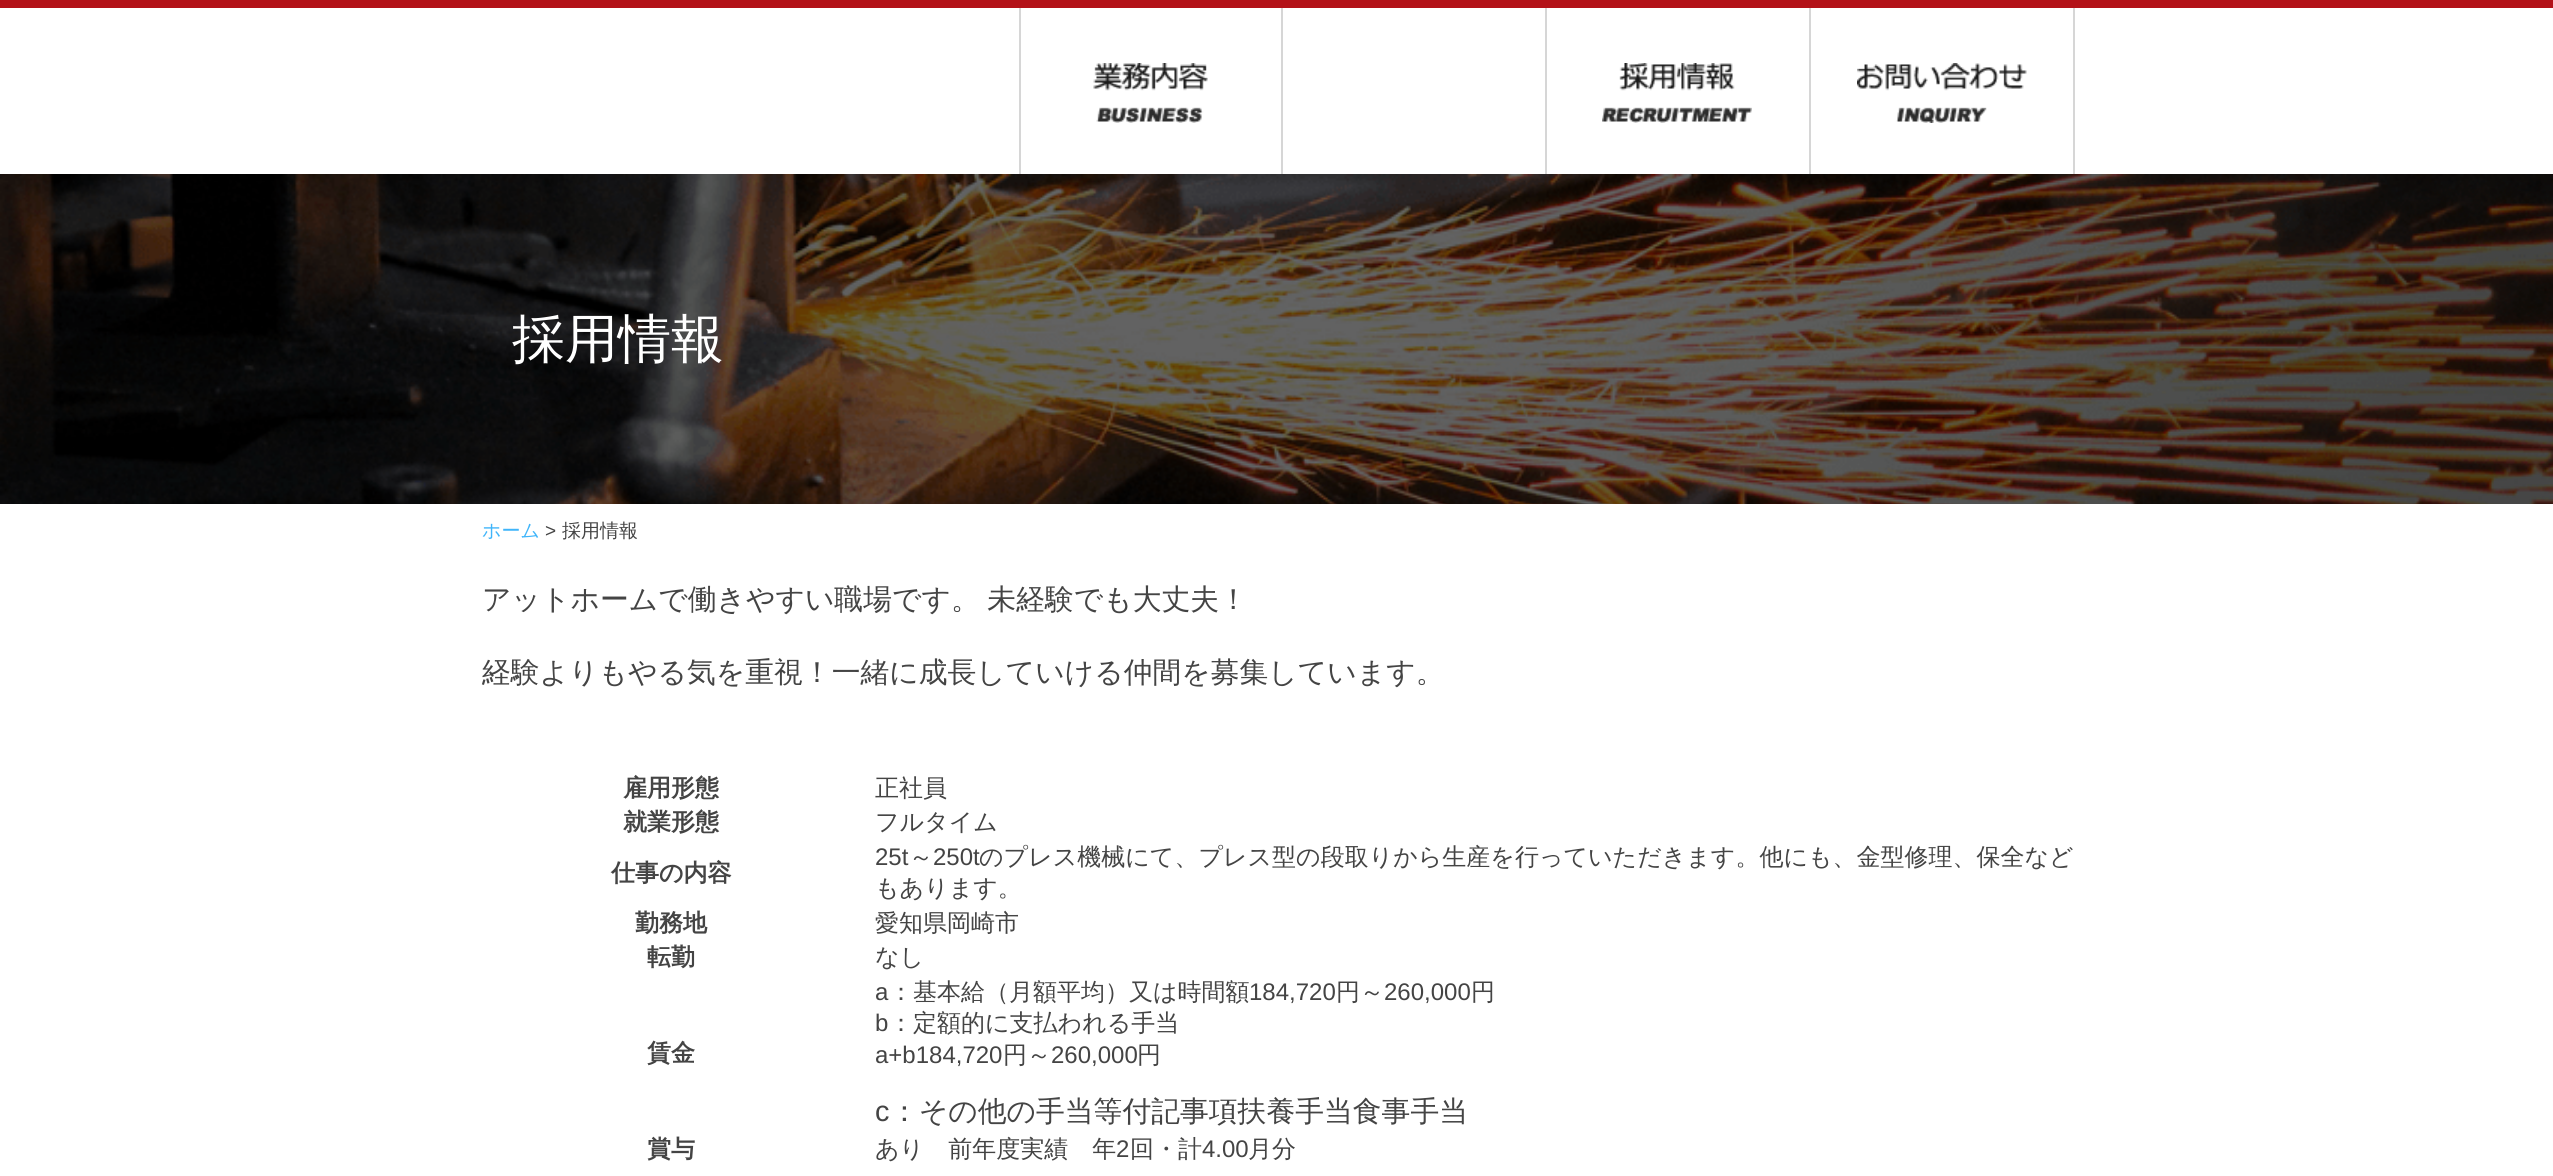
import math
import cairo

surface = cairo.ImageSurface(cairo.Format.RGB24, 2553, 1176)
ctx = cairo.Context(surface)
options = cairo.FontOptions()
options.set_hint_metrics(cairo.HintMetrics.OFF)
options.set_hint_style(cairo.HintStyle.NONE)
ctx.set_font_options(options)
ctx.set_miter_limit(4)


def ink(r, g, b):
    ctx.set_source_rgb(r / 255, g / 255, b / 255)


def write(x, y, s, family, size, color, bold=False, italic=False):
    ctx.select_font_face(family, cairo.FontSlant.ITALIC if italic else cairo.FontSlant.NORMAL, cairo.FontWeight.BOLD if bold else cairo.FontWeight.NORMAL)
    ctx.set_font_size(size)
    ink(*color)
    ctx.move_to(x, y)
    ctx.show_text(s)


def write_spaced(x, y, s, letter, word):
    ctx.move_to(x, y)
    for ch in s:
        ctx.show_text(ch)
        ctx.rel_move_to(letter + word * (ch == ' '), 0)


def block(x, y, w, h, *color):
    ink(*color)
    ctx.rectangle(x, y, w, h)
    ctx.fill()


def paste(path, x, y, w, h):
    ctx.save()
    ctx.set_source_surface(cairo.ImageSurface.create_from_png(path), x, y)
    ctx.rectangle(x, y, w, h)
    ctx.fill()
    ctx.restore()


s1 = dict(family="WenQuanYi Zen Hei Medium", size=53, color=(255, 255, 255))
s2 = dict(family="WenQuanYi Zen Hei Medium", size=19, color=(64, 181, 250))
s3 = dict(family="Liberation Sans", size=19, color=(68, 68, 68))
s4 = dict(family="WenQuanYi Zen Hei Medium", size=19, color=(68, 68, 68))
s5 = dict(family="WenQuanYi Zen Hei Medium", size=28.8, color=(68, 68, 68))
s6 = dict(family="WenQuanYi Zen Hei", size=24, color=(68, 68, 68), bold=True)
s7 = dict(family="WenQuanYi Zen Hei Medium", size=24, color=(68, 68, 68))
s8 = dict(family="Liberation Sans", size=24, color=(68, 68, 68))
s9 = dict(family="Liberation Sans", size=28.8, color=(68, 68, 68))

ink(255, 255, 255)
ctx.paint()
block(0, 0, 2553, 8, 179, 18, 24)
block(1281, 8, 2, 166, 214, 214, 214)
block(1019, 8, 2, 166, 214, 214, 214)
paste("pic1.png", 1093, 63, 115, 60)
block(1545, 8, 2, 166, 214, 214, 214)
block(1809, 8, 2, 166, 214, 214, 214)
paste("pic2.png", 1602, 63, 150, 60)
block(2073, 8, 2, 166, 214, 214, 214)
paste("pic3.png", 1857, 63, 170, 60)
paste("pic4.png", 0, 174, 2553, 330)
write(512, 357, "採用情報", **s1)
write(482, 537, "ホーム", **s2)
write(545, 537, ">", **s3)
write(562, 537, "採用情報", **s4)
ctx.set_font_size(28.8)
write_spaced(482, 609, "アットホームで働きやすい職場です。 未経験でも大丈夫！", 0, -1)
write(482, 682, "経験よりもやる気を重視！一緒に成長していける仲間を募集しています。", **s5)
write(623, 796, "雇用形態", **s6)
write(875, 796, "正社員", **s7)
write(623, 830, "就業形態", **s6)
write(875, 830, "フルタイム", **s7)
write(611, 881, "仕事の内容", **s6)
write(875, 865, "25t", **s8)
write(909, 865, "～", **s7)
write(933, 865, "250t", **s8)
write(979, 865, "のプレス機械にて、プレス型の段取りから生産を行っていただきます。他にも、金型修理、保全など", **s7)
write(875, 896, "もあります。", **s7)
write(635, 931, "勤務地", **s6)
write(875, 931, "愛知県岡崎市", **s7)
write(647, 965, "転勤", **s6)
write(875, 965, "なし", **s7)
write(647, 1061, "賃金", **s6)
write(875, 1000, "a", **s8)
write(889, 1000, "：基本給（月額平均）又は時間額", **s7)
write(1249, 1000, "184,720", **s8)
write(1336, 1000, "円～", **s7)
write(1384, 1000, "260,000", **s8)
write(1471, 1000, "円", **s7)
write(875, 1031, "b", **s8)
write(889, 1031, "：定額的に支払われる手当", **s7)
write(875, 1063, "a+b184,720", **s8)
write(1003, 1063, "円～", **s7)
write(1051, 1063, "260,000", **s8)
write(1137, 1063, "円", **s7)
write(875, 1121, "c", **s9)
write(890, 1121, "：その他の手当等付記事項扶養手当食事手当", **s5)
write(647, 1157, "賞与", **s6)
write(875, 1157, "あり　前年度実績　年", **s7)
write(1116, 1157, "2", **s8)
write(1130, 1157, "回・計", **s7)
write(1202, 1157, "4.00", **s8)
write(1248, 1157, "月分", **s7)
surface.write_to_png("screenshot.png")
